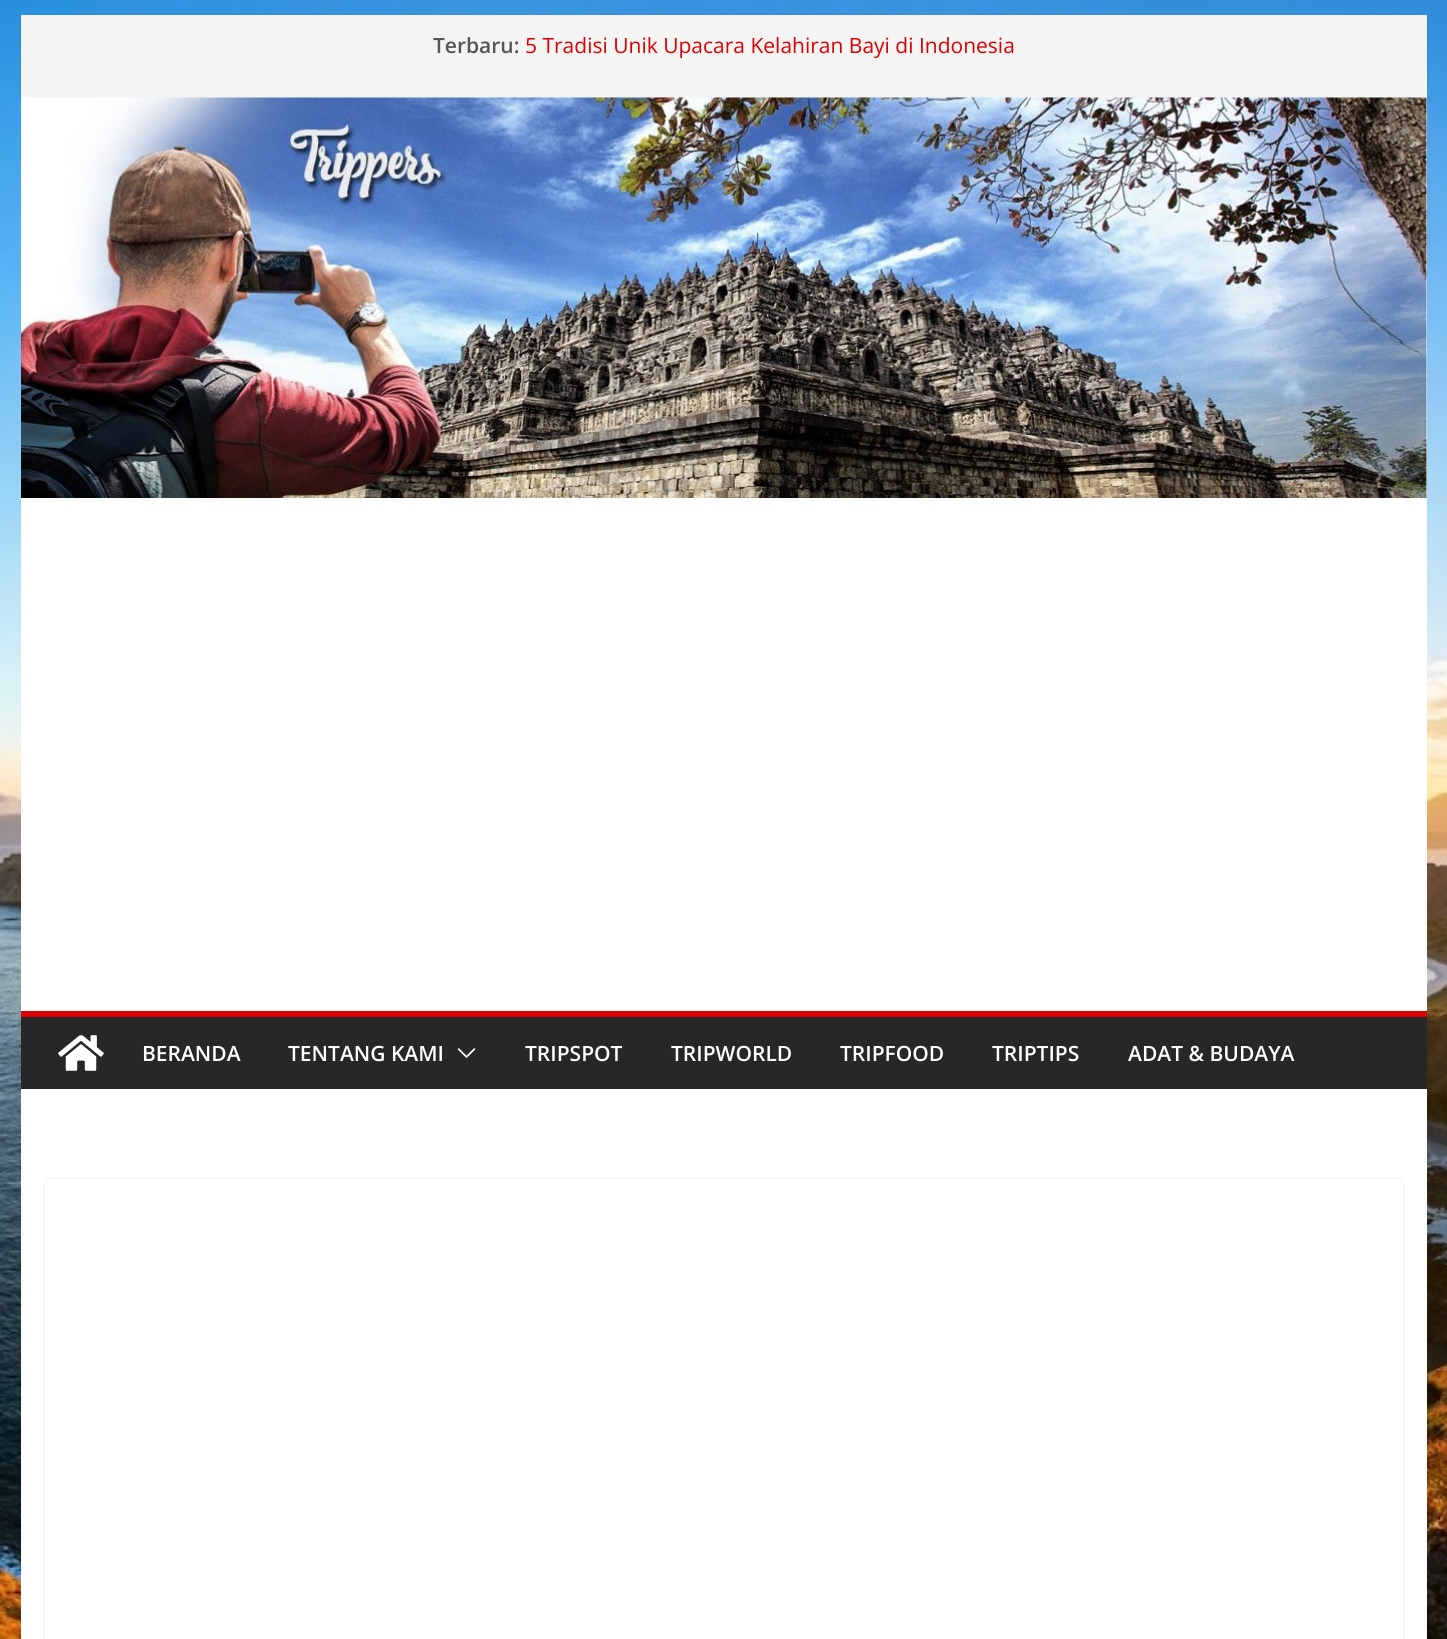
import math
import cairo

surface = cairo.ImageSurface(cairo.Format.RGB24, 1447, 1639)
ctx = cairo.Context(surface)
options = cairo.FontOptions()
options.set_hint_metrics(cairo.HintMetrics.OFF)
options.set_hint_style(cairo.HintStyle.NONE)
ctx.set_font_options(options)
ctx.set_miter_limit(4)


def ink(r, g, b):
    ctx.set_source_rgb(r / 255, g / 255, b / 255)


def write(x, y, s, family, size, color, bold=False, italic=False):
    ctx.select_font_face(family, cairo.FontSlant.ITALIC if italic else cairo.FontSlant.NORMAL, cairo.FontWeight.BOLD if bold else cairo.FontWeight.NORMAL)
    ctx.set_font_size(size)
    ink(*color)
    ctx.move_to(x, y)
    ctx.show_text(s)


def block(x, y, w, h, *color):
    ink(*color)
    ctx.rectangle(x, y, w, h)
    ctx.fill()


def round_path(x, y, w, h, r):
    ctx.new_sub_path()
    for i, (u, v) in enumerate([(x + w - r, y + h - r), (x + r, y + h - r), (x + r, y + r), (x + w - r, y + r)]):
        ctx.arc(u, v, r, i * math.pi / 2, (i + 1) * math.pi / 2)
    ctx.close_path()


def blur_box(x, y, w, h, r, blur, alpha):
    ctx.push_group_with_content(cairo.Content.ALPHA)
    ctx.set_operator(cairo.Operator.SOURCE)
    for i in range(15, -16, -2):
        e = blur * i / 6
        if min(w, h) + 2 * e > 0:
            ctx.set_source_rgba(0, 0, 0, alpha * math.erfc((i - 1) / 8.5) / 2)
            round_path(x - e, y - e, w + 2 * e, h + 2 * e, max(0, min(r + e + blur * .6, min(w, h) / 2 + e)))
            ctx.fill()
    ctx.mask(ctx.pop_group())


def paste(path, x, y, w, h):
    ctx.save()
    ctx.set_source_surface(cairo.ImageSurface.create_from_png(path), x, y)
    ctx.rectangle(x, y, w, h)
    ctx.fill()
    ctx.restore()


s1 = dict(family="Open Sans SemiBold", size=21, color=(85, 85, 85))
s2 = dict(family="Open Sans", size=21, color=(221, 0, 0))
s3 = dict(family="Open Sans SemiBold", size=21, color=(255, 255, 255))

ink(255, 255, 255)
ctx.paint()
paste("pic1.png", 0, 0, 1447, 1639)
block(21, 98, 1406, 913, 255, 255, 255)
ink(0, 0, 0)
blur_box(21, 15, 1406, 83, 0, 1.5, 0.1)
block(21, 15, 1406, 83, 244, 244, 245)
write(433, 53, "Terbaru:", **s1)
write(525, 53, "5 Tradisi Unik Upacara Kelahiran Bayi di Indonesia", **s2)
paste("pic2.png", 21, 97, 1406, 401)
block(21, 1017, 1406, 72, 39, 39, 42)
block(21, 1011, 1406, 6, 221, 0, 0)
paste("pic3.png", 58, 1035, 46, 36)
write(142, 1061, "BERANDA", **s3)
write(288, 1061, "TENTANG KAMI", **s3)
paste("pic4.png", 457, 1048, 19, 10)
write(525, 1061, "TRIPSPOT", **s3)
write(671, 1061, "TRIPWORLD", **s3)
write(840, 1061, "TRIPFOOD", **s3)
write(992, 1061, "TRIPTIPS", **s3)
write(1128, 1061, "ADAT & BUDAYA", **s3)
block(21, 1089, 1406, 550, 255, 255, 255)
ctx.save()
ctx.set_fill_rule(cairo.FillRule.EVEN_ODD)
ctx.new_path()
ctx.move_to(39, 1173)
ctx.line_to(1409, 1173)
ctx.line_to(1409, 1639)
ctx.line_to(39, 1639)
ctx.close_path()
ctx.move_to(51, 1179)
ctx.line_to(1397, 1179)
ctx.curve_to(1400.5, 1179, 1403, 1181.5, 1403, 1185)
ctx.line_to(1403, 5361)
ctx.curve_to(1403, 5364.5, 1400.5, 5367, 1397, 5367)
ctx.line_to(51, 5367)
ctx.curve_to(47.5, 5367, 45, 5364.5, 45, 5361)
ctx.line_to(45, 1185)
ctx.curve_to(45, 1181.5, 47.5, 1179, 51, 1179)
ctx.close_path()
ctx.clip()
ink(228, 228, 231)
blur_box(45, 1179, 1358, 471, 6, 1.5, 1)
ctx.restore()
surface.write_to_png("screenshot.png")
